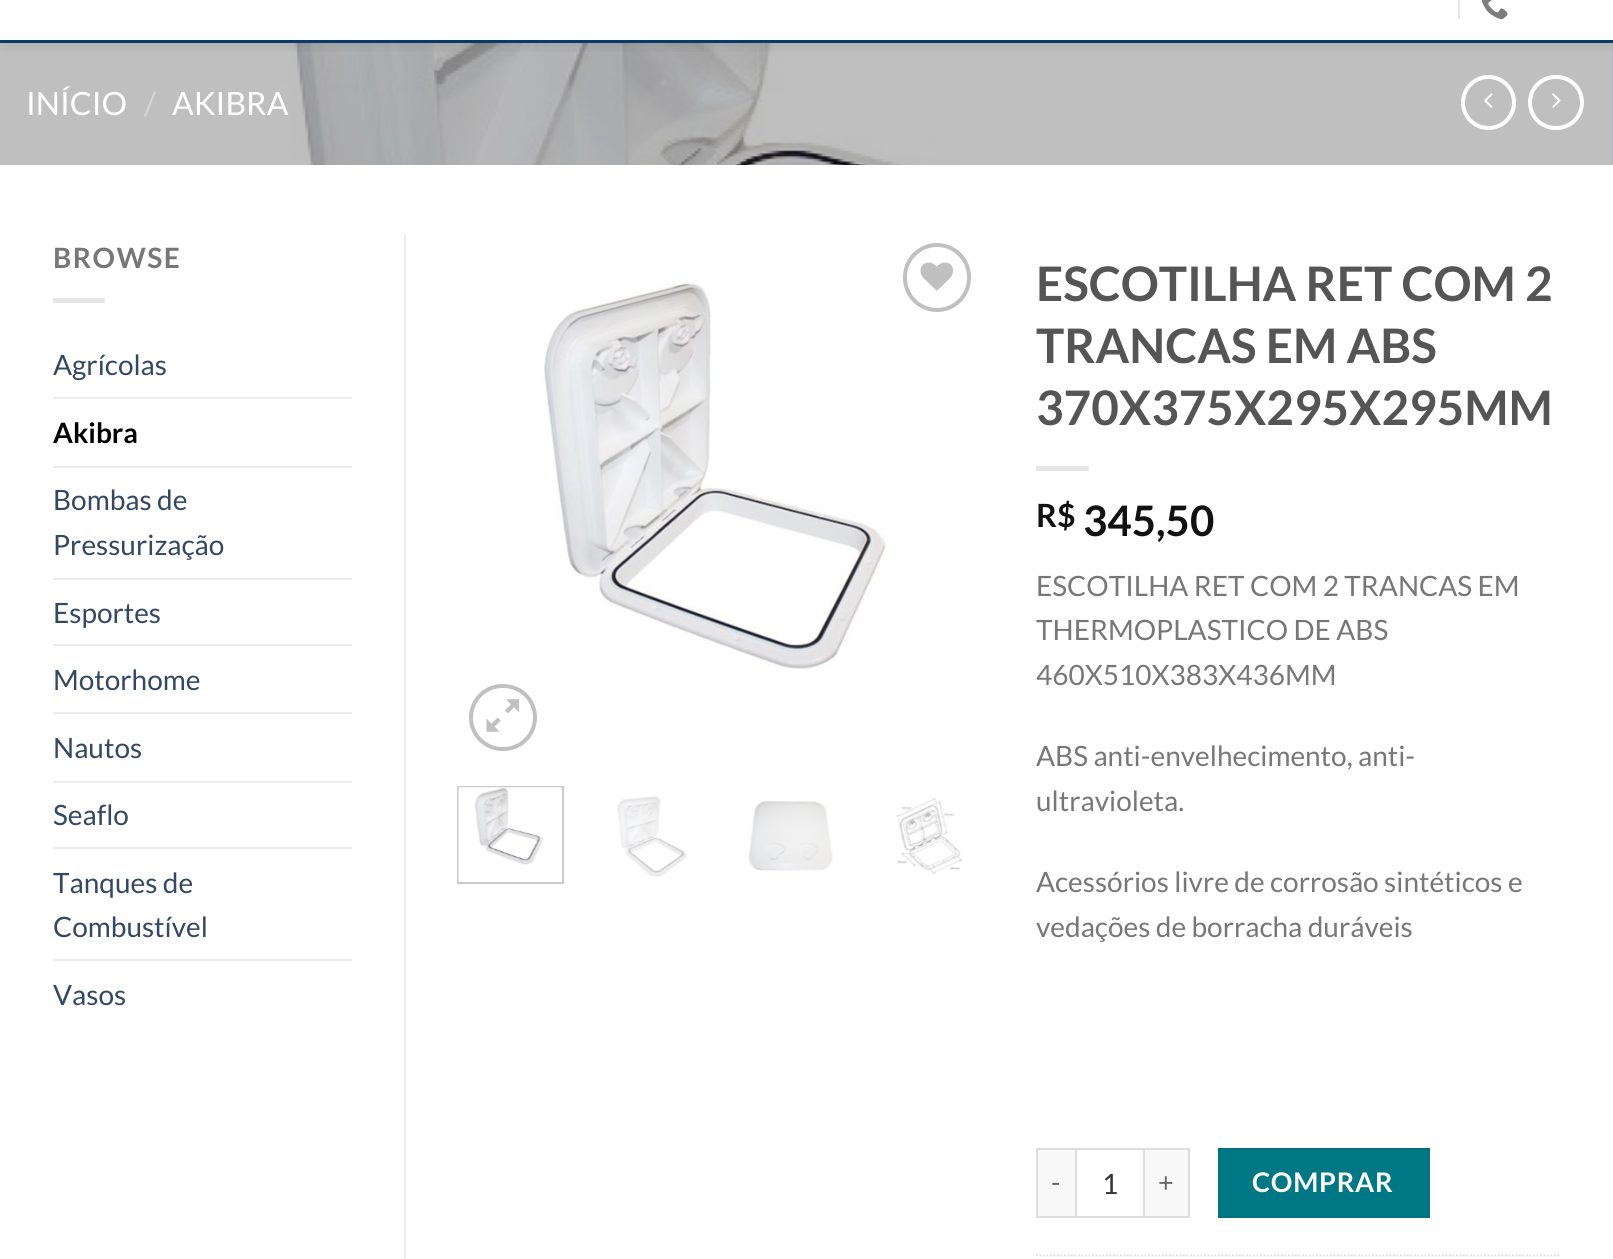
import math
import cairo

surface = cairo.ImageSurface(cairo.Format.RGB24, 1613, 1259)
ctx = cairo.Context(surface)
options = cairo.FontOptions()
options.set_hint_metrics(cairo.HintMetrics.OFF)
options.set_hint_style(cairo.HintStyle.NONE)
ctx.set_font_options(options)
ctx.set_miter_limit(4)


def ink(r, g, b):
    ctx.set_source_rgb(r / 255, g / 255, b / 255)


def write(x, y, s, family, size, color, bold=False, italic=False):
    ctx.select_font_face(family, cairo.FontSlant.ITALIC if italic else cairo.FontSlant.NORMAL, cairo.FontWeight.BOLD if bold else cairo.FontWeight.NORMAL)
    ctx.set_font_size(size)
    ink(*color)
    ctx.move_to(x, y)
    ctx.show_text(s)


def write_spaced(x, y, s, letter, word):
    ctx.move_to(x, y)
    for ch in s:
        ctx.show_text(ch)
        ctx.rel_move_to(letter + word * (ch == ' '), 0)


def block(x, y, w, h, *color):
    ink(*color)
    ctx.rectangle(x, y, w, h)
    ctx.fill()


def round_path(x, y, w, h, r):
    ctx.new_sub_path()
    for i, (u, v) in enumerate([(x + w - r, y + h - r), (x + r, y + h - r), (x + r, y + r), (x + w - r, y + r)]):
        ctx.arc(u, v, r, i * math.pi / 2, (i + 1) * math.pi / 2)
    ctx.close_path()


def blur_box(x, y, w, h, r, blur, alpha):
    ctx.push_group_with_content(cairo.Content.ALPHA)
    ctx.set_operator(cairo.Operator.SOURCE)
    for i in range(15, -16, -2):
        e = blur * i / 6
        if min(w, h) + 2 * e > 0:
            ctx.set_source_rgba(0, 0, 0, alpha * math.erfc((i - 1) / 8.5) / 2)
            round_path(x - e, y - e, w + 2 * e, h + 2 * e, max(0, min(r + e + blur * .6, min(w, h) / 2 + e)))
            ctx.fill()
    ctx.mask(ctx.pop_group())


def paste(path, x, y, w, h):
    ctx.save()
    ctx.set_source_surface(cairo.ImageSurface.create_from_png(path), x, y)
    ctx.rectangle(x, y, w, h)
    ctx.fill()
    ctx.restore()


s1 = dict(family="Lato", size=32, color=(255, 255, 255))
s2 = dict(family="Lato", size=32, color=(214, 214, 214))
s3 = dict(family="Lato", size=28, color=(51, 72, 98))
s4 = dict(family="Lato", size=28, color=(0, 0, 0), bold=True)
s5 = dict(family="Lato", size=47.6, color=(85, 85, 85), bold=True)
s6 = dict(family="Lato", size=32, color=(17, 17, 17), bold=True)
s7 = dict(family="Lato", size=42, color=(17, 17, 17), bold=True)
s8 = dict(family="Lato", size=28, color=(119, 119, 119))
s9 = dict(family="Lato", size=28, color=(51, 51, 51))

ink(255, 255, 255)
ctx.paint()
block(0, 40, 1613, 125, 13, 61, 116)
paste("pic2.png", 0, 43, 1613, 122)
ctx.save()
ctx.rectangle(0, 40, 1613, 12)
ctx.clip()
ink(0, 0, 0)
blur_box(2, -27, 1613, 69, 0, 9, 0.15)
ctx.restore()
block(1458, 0, 2, 19, 230, 230, 230)
paste("pic1.png", 1481, 0, 27, 20)
write(26, 115, "INÍCIO", **s1)
write(144, 115, "/", **s2)
write(172, 115, "AKIBRA", **s1)
ctx.new_path()
ctx.arc(1488.5, 102.5, 25.5, 0, 2 * math.pi)
ctx.set_line_width(4)
ctx.stroke()
paste("pic3.png", 1484, 93, 9, 15)
round_path(1530, 77, 52, 51, 25.5)
ctx.stroke()
paste("pic4.png", 1552, 93, 9, 15)
ctx.select_font_face("Lato", cairo.FontSlant.NORMAL, cairo.FontWeight.BOLD)
ctx.set_font_size(28)
ink(119, 119, 119)
write_spaced(53, 268, "BROWSE", 1.5, 0)
block(53, 298, 52, 5, 230, 230, 230)
write(53, 375, "Agrícolas", **s3)
block(53, 397, 299, 2, 236, 236, 236)
write(53, 443, "Akibra", **s4)
block(53, 466, 299, 2, 236, 236, 236)
write(53, 510, "Bombas de", **s3)
write(53, 555, "Pressurização", **s3)
block(53, 578, 299, 2, 236, 236, 236)
write(53, 623, "Esportes", **s3)
block(53, 644, 299, 2, 236, 236, 236)
write(53, 690, "Motorhome", **s3)
block(53, 712, 299, 2, 236, 236, 236)
write(53, 758, "Nautos", **s3)
block(53, 781, 299, 2, 236, 236, 236)
write(53, 825, "Seaflo", **s3)
block(53, 847, 299, 2, 236, 236, 236)
write(53, 893, "Tanques de", **s3)
write(53, 937, "Combustível", **s3)
block(53, 959, 299, 2, 236, 236, 236)
write(53, 1005, "Vasos", **s3)
block(404, 235, 2, 1024, 236, 236, 236)
paste("pic5.png", 543, 283, 343, 387)
round_path(905, 245, 64, 65, 32)
ink(192, 192, 192)
ctx.stroke()
paste("pic6.png", 920, 262, 33, 29)
round_path(471, 686, 64, 63, 31.5)
ctx.stroke()
paste("pic7.png", 486, 699, 34, 33)
ctx.rectangle(458, 787, 105, 96)
ink(204, 204, 204)
ctx.set_line_width(2)
ctx.stroke()
paste("pic8.png", 458, 787, 104, 95)
paste("pic9.png", 617, 796, 70, 81)
paste("pic10.png", 748, 801, 85, 70)
paste("pic11.png", 896, 797, 67, 78)
write(1036, 301, "ESCOTILHA RET COM 2", **s5)
write(1036, 363, "TRANCAS EM ABS", **s5)
write(1036, 425, "370X375X295X295MM", **s5)
block(1036, 466, 53, 5, 230, 230, 230)
write(1036, 527, "R$", **s6)
write(1083, 536, "345,50", **s7)
write(1036, 596, "ESCOTILHA RET COM 2 TRANCAS EM", **s8)
write(1036, 640, "THERMOPLASTICO DE ABS", **s8)
write(1036, 685, "460X510X383X436MM", **s8)
write(1036, 766, "ABS anti-envelhecimento, anti-", **s8)
write(1036, 811, "ultravioleta.", **s8)
write(1036, 892, "Acessórios livre de corrosão sintéticos e", **s8)
write(1036, 937, "vedações de borracha duráveis", **s8)
block(1038, 1150, 37, 66, 249, 249, 249)
block(1036, 1148, 39, 2, 221, 221, 221)
block(1036, 1216, 39, 2, 221, 221, 221)
block(1036, 1148, 2, 70, 221, 221, 221)
ctx.set_font_size(27)
ink(102, 102, 102)
write_spaced(1051, 1192, "-", 0.75, 0)
ctx.rectangle(1076, 1149, 68, 68)
ink(221, 221, 221)
ctx.stroke()
write(1102, 1194, "1", **s9)
block(1145, 1150, 43, 66, 249, 249, 249)
block(1145, 1148, 45, 2, 221, 221, 221)
block(1188, 1148, 2, 70, 221, 221, 221)
block(1145, 1216, 45, 2, 221, 221, 221)
ctx.set_font_size(27)
ink(102, 102, 102)
write_spaced(1158, 1192, "+", 0.75, 0)
ink(0, 119, 132)
ctx.rectangle(1219, 1149, 210, 68)
ctx.fill_preserve()
ink(0, 113, 125)
ctx.stroke()
ctx.select_font_face("Lato", cairo.FontSlant.NORMAL, cairo.FontWeight.BOLD)
ink(255, 255, 255)
write_spaced(1252, 1192, "COMPRAR", 0.75, 0)
ctx.new_path()
ctx.move_to(1036, 1255.5)
ctx.line_to(1561, 1255.5)
ink(221, 221, 221)
ctx.set_line_width(1.8)
ctx.set_dash([1.75, 1.75])
ctx.stroke()
surface.write_to_png("screenshot.png")
